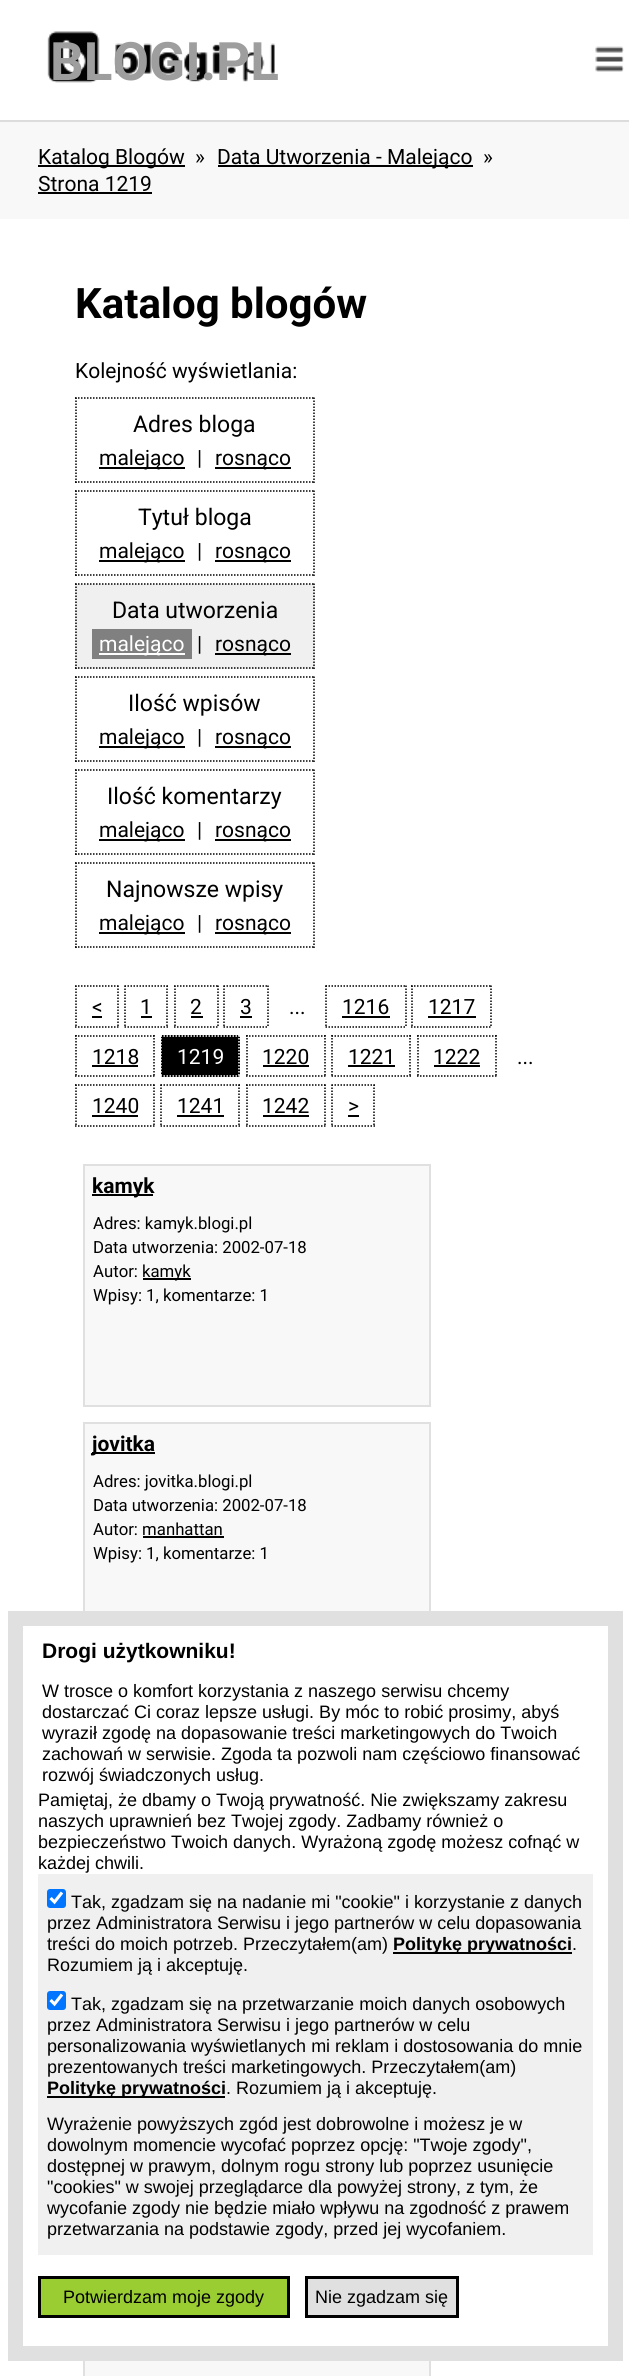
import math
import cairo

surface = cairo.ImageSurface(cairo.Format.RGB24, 629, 2376)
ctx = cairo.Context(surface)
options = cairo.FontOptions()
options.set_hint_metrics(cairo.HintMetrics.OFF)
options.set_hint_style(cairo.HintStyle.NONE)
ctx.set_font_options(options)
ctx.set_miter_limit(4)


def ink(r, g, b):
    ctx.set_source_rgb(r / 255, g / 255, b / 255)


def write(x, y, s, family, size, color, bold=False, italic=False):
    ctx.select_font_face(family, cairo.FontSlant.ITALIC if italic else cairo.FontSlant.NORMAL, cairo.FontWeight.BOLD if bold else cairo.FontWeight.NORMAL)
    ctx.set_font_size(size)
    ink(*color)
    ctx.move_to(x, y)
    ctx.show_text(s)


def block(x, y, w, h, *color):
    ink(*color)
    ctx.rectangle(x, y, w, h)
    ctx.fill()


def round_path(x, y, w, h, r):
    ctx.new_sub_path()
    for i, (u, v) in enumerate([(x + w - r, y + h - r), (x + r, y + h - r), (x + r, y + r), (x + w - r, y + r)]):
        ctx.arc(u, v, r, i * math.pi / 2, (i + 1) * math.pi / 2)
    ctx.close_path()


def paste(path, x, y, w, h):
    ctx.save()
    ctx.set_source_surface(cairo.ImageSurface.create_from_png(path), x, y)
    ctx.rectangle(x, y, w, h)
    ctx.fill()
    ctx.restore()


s1 = dict(family="Roboto", size=53, color=(158, 158, 158), bold=True)
s2 = dict(family="Roboto", size=21, color=(0, 0, 0))
s3 = dict(family="Roboto", size=42, color=(0, 0, 0), bold=True)
s4 = dict(family="Roboto", size=23, color=(0, 0, 0))
s5 = dict(family="Roboto", size=21, color=(255, 255, 255))
s6 = dict(family="Roboto", size=21, color=(0, 0, 0), bold=True)
s7 = dict(family="Roboto", size=16.75, color=(0, 0, 0))
s8 = dict(family="Liberation Sans", size=21, color=(0, 0, 0), bold=True)
s9 = dict(family="Liberation Sans", size=18, color=(0, 0, 0))
s10 = dict(family="Liberation Sans", size=18, color=(0, 0, 0), bold=True)

ink(248, 248, 248)
ctx.paint()
block(0, 0, 629, 120, 255, 255, 255)
block(0, 120, 629, 2, 220, 220, 220)
paste("pic1.png", 47, 31, 228, 52)
write(50, 80, "BLOGI.PL", **s1)
paste("pic2.png", 595, 46, 29, 26)
block(38, 165, 147, 2, 0, 0, 0)
write(38, 164, "Katalog Blogów", **s2)
write(195, 164, "»", **s2)
block(218, 165, 255, 2, 0, 0, 0)
write(217, 164, "Data Utworzenia - Malejąco", **s2)
write(483, 164, "»", **s2)
write(38, 191, "Strona 1219", **s2)
block(38, 192, 114, 2, 0, 0, 0)
block(0, 219, 629, 2157, 255, 255, 255)
write(75, 318, "Katalog blogów", **s3)
write(75, 378, "Kolejność wyświetlania:", **s2)
ctx.new_path()
ctx.move_to(75, 398)
ctx.line_to(315, 398)
ctx.set_line_width(1.5)
ctx.set_dash([1.5, 1.5])
ctx.stroke()
ctx.new_path()
ctx.move_to(314, 397.5)
ctx.line_to(314, 483)
ctx.stroke()
ctx.new_path()
ctx.move_to(75, 482)
ctx.line_to(315, 482)
ctx.stroke()
ctx.new_path()
ctx.move_to(76, 397.5)
ctx.line_to(76, 483)
ctx.stroke()
write(133, 432, "Adres bloga", **s4)
block(99, 467, 86, 2, 0, 0, 0)
write(99, 465, "malejąco", **s2)
write(197, 465, "|", **s2)
block(215, 467, 76, 2, 0, 0, 0)
write(215, 465, "rosnąco", **s2)
ctx.new_path()
ctx.move_to(75, 491)
ctx.line_to(315, 491)
ctx.stroke()
ctx.new_path()
ctx.move_to(314, 490.5)
ctx.line_to(314, 576)
ctx.stroke()
ctx.new_path()
ctx.move_to(75, 575)
ctx.line_to(315, 575)
ctx.stroke()
ctx.new_path()
ctx.move_to(76, 490.5)
ctx.line_to(76, 576)
ctx.stroke()
write(138, 525, "Tytuł bloga", **s4)
block(99, 560, 86, 2, 0, 0, 0)
write(99, 558, "malejąco", **s2)
write(197, 558, "|", **s2)
block(215, 560, 76, 2, 0, 0, 0)
write(215, 558, "rosnąco", **s2)
block(75, 584, 240, 85, 240, 240, 240)
ctx.new_path()
ctx.move_to(75, 584)
ctx.line_to(315, 584)
ink(0, 0, 0)
ctx.stroke()
ctx.new_path()
ctx.move_to(314, 583.5)
ctx.line_to(314, 669)
ctx.stroke()
ctx.new_path()
ctx.move_to(75, 668)
ctx.line_to(315, 668)
ctx.stroke()
ctx.new_path()
ctx.move_to(76, 583.5)
ctx.line_to(76, 669)
ctx.stroke()
write(112, 618, "Data utworzenia", **s4)
block(92, 629, 100, 30, 128, 128, 128)
block(99, 653, 86, 2, 255, 255, 255)
write(99, 651, "malejąco", **s5)
write(197, 651, "|", **s2)
block(215, 653, 76, 2, 0, 0, 0)
write(215, 651, "rosnąco", **s2)
ctx.new_path()
ctx.move_to(75, 677)
ctx.line_to(315, 677)
ctx.stroke()
ctx.new_path()
ctx.move_to(314, 676.5)
ctx.line_to(314, 762)
ctx.stroke()
ctx.new_path()
ctx.move_to(75, 761)
ctx.line_to(315, 761)
ctx.stroke()
ctx.new_path()
ctx.move_to(76, 676.5)
ctx.line_to(76, 762)
ctx.stroke()
write(128, 711, "Ilość wpisów", **s4)
block(99, 746, 86, 2, 0, 0, 0)
write(99, 744, "malejąco", **s2)
write(197, 744, "|", **s2)
block(215, 746, 76, 2, 0, 0, 0)
write(215, 744, "rosnąco", **s2)
ctx.new_path()
ctx.move_to(75, 770)
ctx.line_to(315, 770)
ctx.stroke()
ctx.new_path()
ctx.move_to(314, 769.5)
ctx.line_to(314, 855)
ctx.stroke()
ctx.new_path()
ctx.move_to(75, 854)
ctx.line_to(315, 854)
ctx.stroke()
ctx.new_path()
ctx.move_to(76, 769.5)
ctx.line_to(76, 855)
ctx.stroke()
write(107, 804, "Ilość komentarzy", **s4)
block(99, 839, 86, 2, 0, 0, 0)
write(99, 837, "malejąco", **s2)
write(197, 837, "|", **s2)
block(215, 839, 76, 2, 0, 0, 0)
write(215, 837, "rosnąco", **s2)
ctx.new_path()
ctx.move_to(75, 863)
ctx.line_to(315, 863)
ctx.stroke()
ctx.new_path()
ctx.move_to(314, 862.5)
ctx.line_to(314, 948)
ctx.stroke()
ctx.new_path()
ctx.move_to(75, 947)
ctx.line_to(315, 947)
ctx.stroke()
ctx.new_path()
ctx.move_to(76, 862.5)
ctx.line_to(76, 948)
ctx.stroke()
write(106, 897, "Najnowsze wpisy", **s4)
block(99, 932, 86, 2, 0, 0, 0)
write(99, 930, "malejąco", **s2)
write(197, 930, "|", **s2)
block(215, 932, 76, 2, 0, 0, 0)
write(215, 930, "rosnąco", **s2)
ctx.new_path()
ctx.move_to(75, 986)
ctx.line_to(118.5, 986)
ctx.move_to(118, 985.5)
ctx.line_to(118, 1027.5)
ctx.move_to(75, 1027)
ctx.line_to(118.5, 1027)
ctx.move_to(76, 985.5)
ctx.line_to(76, 1027.5)
ctx.stroke()
write(92, 1014, "<", **s2)
block(92, 1016, 10, 2, 0, 0, 0)
ctx.new_path()
ctx.move_to(124.5, 986)
ctx.line_to(168, 986)
ctx.move_to(167, 985.5)
ctx.line_to(167, 1027.5)
ctx.move_to(124.5, 1027)
ctx.line_to(168, 1027)
ctx.move_to(125, 985.5)
ctx.line_to(125, 1027.5)
ctx.stroke()
write(140, 1014, "1", **s2)
block(141, 1016, 11, 2, 0, 0, 0)
ctx.new_path()
ctx.move_to(174, 986)
ctx.line_to(219, 986)
ctx.move_to(218, 985.5)
ctx.line_to(218, 1027.5)
ctx.move_to(174, 1027)
ctx.line_to(219, 1027)
ctx.move_to(175, 985.5)
ctx.line_to(175, 1027.5)
ctx.stroke()
write(190, 1014, "2", **s2)
block(191, 1016, 12, 2, 0, 0, 0)
ctx.new_path()
ctx.move_to(223.5, 986)
ctx.line_to(268.5, 986)
ctx.move_to(268, 985.5)
ctx.line_to(268, 1027.5)
ctx.move_to(223.5, 1027)
ctx.line_to(268.5, 1027)
ctx.move_to(224, 985.5)
ctx.line_to(224, 1027.5)
ctx.stroke()
write(240, 1014, "3", **s2)
block(240, 1016, 12, 2, 0, 0, 0)
ctx.new_path()
ctx.move_to(325.5, 986)
ctx.line_to(406.5, 986)
ctx.stroke()
ctx.new_path()
ctx.move_to(406, 985.5)
ctx.line_to(406, 1027.5)
ctx.stroke()
ctx.new_path()
ctx.move_to(325.5, 1027)
ctx.line_to(406.5, 1027)
ctx.stroke()
ctx.new_path()
ctx.move_to(326, 985.5)
ctx.line_to(326, 1027.5)
ctx.stroke()
write(342, 1014, "1216", **s2)
block(342, 1016, 48, 2, 0, 0, 0)
ctx.new_path()
ctx.move_to(411, 986)
ctx.line_to(492, 986)
ctx.stroke()
ctx.new_path()
ctx.move_to(491, 985.5)
ctx.line_to(491, 1027.5)
ctx.stroke()
ctx.new_path()
ctx.move_to(411, 1027)
ctx.line_to(492, 1027)
ctx.stroke()
ctx.new_path()
ctx.move_to(412, 985.5)
ctx.line_to(412, 1027.5)
ctx.stroke()
write(428, 1014, "1217", **s2)
block(428, 1016, 48, 2, 0, 0, 0)
write(289, 1014, "...", **s2)
ctx.new_path()
ctx.move_to(75, 1036)
ctx.line_to(154.5, 1036)
ctx.stroke()
ctx.new_path()
ctx.move_to(154, 1035)
ctx.line_to(154, 1077)
ctx.stroke()
ctx.new_path()
ctx.move_to(75, 1076)
ctx.line_to(154.5, 1076)
ctx.stroke()
ctx.new_path()
ctx.move_to(76, 1035)
ctx.line_to(76, 1077)
ctx.stroke()
write(92, 1064, "1218", **s2)
block(92, 1065, 46, 2, 0, 0, 0)
block(161, 1035, 79, 42, 0, 0, 0)
ctx.new_path()
ctx.move_to(160.5, 1036)
ctx.line_to(240, 1036)
ink(255, 255, 255)
ctx.stroke()
ctx.new_path()
ctx.move_to(239, 1035)
ctx.line_to(239, 1077)
ctx.stroke()
ctx.new_path()
ctx.move_to(160.5, 1076)
ctx.line_to(240, 1076)
ctx.stroke()
ctx.new_path()
ctx.move_to(161, 1035)
ctx.line_to(161, 1077)
ctx.stroke()
write(177, 1064, "1219", **s5)
ctx.new_path()
ctx.move_to(246, 1036)
ctx.line_to(325.5, 1036)
ink(0, 0, 0)
ctx.stroke()
ctx.new_path()
ctx.move_to(325, 1035)
ctx.line_to(325, 1077)
ctx.stroke()
ctx.new_path()
ctx.move_to(246, 1076)
ctx.line_to(325.5, 1076)
ctx.stroke()
ctx.new_path()
ctx.move_to(247, 1035)
ctx.line_to(247, 1077)
ctx.stroke()
write(262, 1064, "1220", **s2)
block(263, 1065, 46, 2, 0, 0, 0)
ctx.new_path()
ctx.move_to(331.5, 1036)
ctx.line_to(411, 1036)
ctx.stroke()
ctx.new_path()
ctx.move_to(410, 1035)
ctx.line_to(410, 1077)
ctx.stroke()
ctx.new_path()
ctx.move_to(331.5, 1076)
ctx.line_to(411, 1076)
ctx.stroke()
ctx.new_path()
ctx.move_to(332, 1035)
ctx.line_to(332, 1077)
ctx.stroke()
write(348, 1064, "1221", **s2)
block(348, 1065, 47, 2, 0, 0, 0)
ctx.new_path()
ctx.move_to(417, 1036)
ctx.line_to(496.5, 1036)
ctx.stroke()
ctx.new_path()
ctx.move_to(496, 1035)
ctx.line_to(496, 1077)
ctx.stroke()
ctx.new_path()
ctx.move_to(417, 1076)
ctx.line_to(496.5, 1076)
ctx.stroke()
ctx.new_path()
ctx.move_to(418, 1035)
ctx.line_to(418, 1077)
ctx.stroke()
write(433, 1064, "1222", **s2)
block(434, 1065, 46, 2, 0, 0, 0)
write(517, 1064, "...", **s2)
ctx.new_path()
ctx.move_to(75, 1085)
ctx.line_to(154.5, 1085)
ctx.stroke()
ctx.new_path()
ctx.move_to(154, 1084.5)
ctx.line_to(154, 1126.5)
ctx.stroke()
ctx.new_path()
ctx.move_to(75, 1126)
ctx.line_to(154.5, 1126)
ctx.stroke()
ctx.new_path()
ctx.move_to(76, 1084.5)
ctx.line_to(76, 1126.5)
ctx.stroke()
write(92, 1113, "1240", **s2)
block(92, 1115, 46, 2, 0, 0, 0)
ctx.new_path()
ctx.move_to(160.5, 1085)
ctx.line_to(240, 1085)
ctx.stroke()
ctx.new_path()
ctx.move_to(239, 1084.5)
ctx.line_to(239, 1126.5)
ctx.stroke()
ctx.new_path()
ctx.move_to(160.5, 1126)
ctx.line_to(240, 1126)
ctx.stroke()
ctx.new_path()
ctx.move_to(161, 1084.5)
ctx.line_to(161, 1126.5)
ctx.stroke()
write(177, 1113, "1241", **s2)
block(177, 1115, 47, 2, 0, 0, 0)
ctx.new_path()
ctx.move_to(246, 1085)
ctx.line_to(325.5, 1085)
ctx.stroke()
ctx.new_path()
ctx.move_to(325, 1084.5)
ctx.line_to(325, 1126.5)
ctx.stroke()
ctx.new_path()
ctx.move_to(246, 1126)
ctx.line_to(325.5, 1126)
ctx.stroke()
ctx.new_path()
ctx.move_to(247, 1084.5)
ctx.line_to(247, 1126.5)
ctx.stroke()
write(262, 1113, "1242", **s2)
block(263, 1115, 46, 2, 0, 0, 0)
ctx.new_path()
ctx.move_to(331.5, 1085)
ctx.line_to(375, 1085)
ctx.move_to(374, 1084.5)
ctx.line_to(374, 1126.5)
ctx.move_to(331.5, 1126)
ctx.line_to(375, 1126)
ctx.move_to(332, 1084.5)
ctx.line_to(332, 1126.5)
ctx.stroke()
write(348, 1113, ">", **s2)
block(348, 1115, 11, 2, 0, 0, 0)
ink(248, 248, 248)
ctx.rectangle(84, 1165, 346, 241)
ctx.fill_preserve()
ink(224, 224, 224)
ctx.set_line_width(2)
ctx.set_dash([])
ctx.stroke()
block(92, 1194, 61, 2, 0, 0, 0)
write(92, 1193, "kamyk", **s6)
write(93, 1229, "Adres: kamyk.blogi.pl", **s7)
write(93, 1253, "Data utworzenia: 2002-07-18", **s7)
write(93, 1277, "Autor:", **s7)
block(143, 1278, 48, 2, 0, 0, 0)
write(142, 1277, "kamyk", **s7)
write(93, 1301, "Wpisy: 1, komentarze: 1", **s7)
block(85, 1424, 344, 187, 248, 248, 248)
ctx.rectangle(84, 1423, 346, 241)
ink(224, 224, 224)
ctx.stroke()
block(92, 1452, 63, 2, 0, 0, 0)
write(92, 1451, "jovitka", **s6)
write(93, 1487, "Adres: jovitka.blogi.pl", **s7)
write(93, 1511, "Data utworzenia: 2002-07-18", **s7)
write(93, 1535, "Autor: manhattan", **s7)
block(143, 1536, 81, 2, 0, 0, 0)
write(93, 1559, "Wpisy: 1, komentarze: 1", **s7)
block(85, 2361, 344, 15, 248, 248, 248)
ctx.rectangle(84, 2197, 346, 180)
ink(224, 224, 224)
ctx.stroke()
block(83, 1626, 348, 720, 255, 255, 255)
ctx.rectangle(15.5, 1618.5, 600, 735)
ink(224, 224, 224)
ctx.set_line_width(15)
ctx.stroke()
write(42, 1658, "Drogi użytkowniku!", **s8)
write(42, 1697, "W trosce o komfort korzystania z naszego serwisu chcemy", **s9)
write(42, 1718, "dostarczać Ci coraz lepsze usługi. By móc to robić prosimy, abyś", **s9)
write(42, 1739, "wyraził zgodę na dopasowanie treści marketingowych do Twoich", **s9)
write(42, 1760, "zachowań w serwisie. Zgoda ta pozwoli nam częściowo finansować", **s9)
write(42, 1781, "rozwój świadczonych usług.", **s9)
write(38, 1806, "Pamiętaj, że dbamy o Twoją prywatność. Nie zwiększamy zakresu", **s9)
write(38, 1827, "naszych uprawnień bez Twojej zgody. Zadbamy również o", **s9)
write(38, 1848, "bezpieczeństwo Twoich danych. Wyrażoną zgodę możesz cofnąć w", **s9)
write(38, 1869, "każdej chwili.", **s9)
block(38, 1874, 555, 381, 240, 240, 240)
ink(0, 117, 255)
round_path(47, 1889, 19, 19, 3)
ctx.fill()
ctx.new_path()
ctx.move_to(50.5, 1898)
ctx.line_to(54.5, 1902)
ctx.line_to(62, 1892.5)
ink(255, 255, 255)
ctx.set_line_width(3.1)
ctx.stroke()
write(71, 1908, "Tak, zgadzam się na nadanie mi \"cookie\" i korzystanie z danych", **s9)
write(47, 1929, "przez Administratora Serwisu i jego partnerów w celu dopasowania", **s9)
write(47, 1950, "treści do moich potrzeb. Przeczytałem(am)", **s9)
block(393, 1952, 179, 2, 0, 0, 0)
write(393, 1950, "Politykę prywatności", **s10)
write(572, 1950, ".", **s9)
write(47, 1971, "Rozumiem ją i akceptuję.", **s9)
ink(0, 117, 255)
round_path(47, 1991, 19, 19, 3)
ctx.fill()
ctx.new_path()
ctx.move_to(50.5, 2000)
ctx.line_to(54.5, 2004)
ctx.line_to(62, 1994.5)
ink(255, 255, 255)
ctx.stroke()
write(71, 2010, "Tak, zgadzam się na przetwarzanie moich danych osobowych", **s9)
write(47, 2031, "przez Administratora Serwisu i jego partnerów w celu", **s9)
write(47, 2052, "personalizowania wyświetlanych mi reklam i dostosowania do mnie", **s9)
write(47, 2073, "prezentowanych treści marketingowych. Przeczytałem(am)", **s9)
block(47, 2096, 178, 2, 0, 0, 0)
write(47, 2094, "Politykę prywatności", **s10)
write(226, 2094, ". Rozumiem ją i akceptuję.", **s9)
write(47, 2130, "Wyrażenie powyższych zgód jest dobrowolne i możesz je w", **s9)
write(47, 2151, "dowolnym momencie wycofać poprzez opcję: \"Twoje zgody\",", **s9)
write(47, 2172, "dostępnej w prawym, dolnym rogu strony lub poprzez usunięcie", **s9)
write(47, 2193, "\"cookies\" w swojej przeglądarce dla powyżej strony, z tym, że", **s9)
write(47, 2214, "wycofanie zgody nie będzie miało wpływu na zgodność z prawem", **s9)
write(47, 2235, "przetwarzania na podstawie zgody, przed jej wycofaniem.", **s9)
ink(154, 205, 50)
ctx.rectangle(39.5, 2277.5, 249, 39)
ctx.fill_preserve()
ink(0, 0, 0)
ctx.set_line_width(3)
ctx.stroke()
write(63, 2303, "Potwierdzam moje zgody", **s9)
ink(224, 224, 224)
ctx.rectangle(306.5, 2277.5, 151, 39)
ctx.fill_preserve()
ink(0, 0, 0)
ctx.stroke()
write(315, 2303, "Nie zgadzam się", **s9)
surface.write_to_png("screenshot.png")
